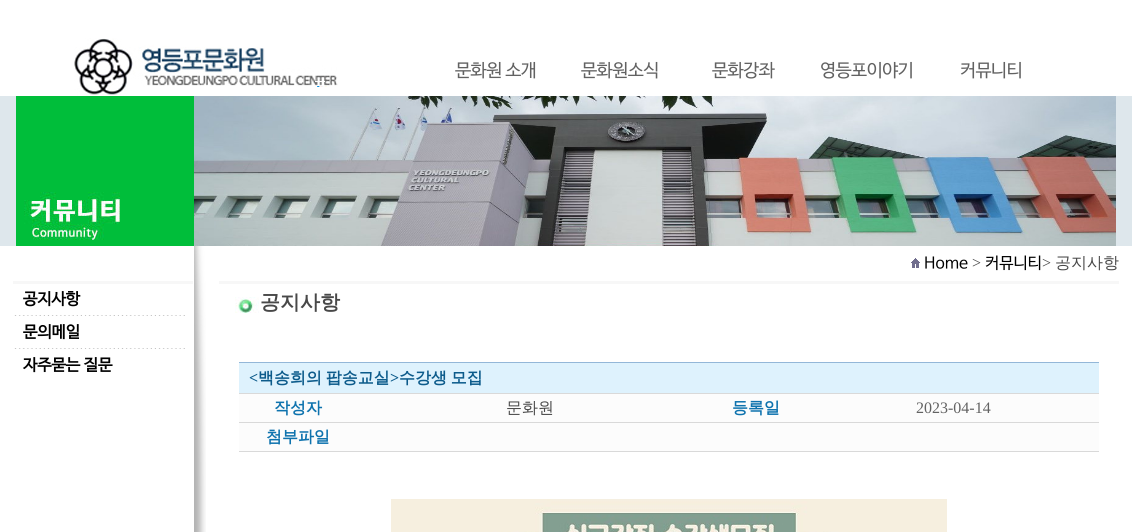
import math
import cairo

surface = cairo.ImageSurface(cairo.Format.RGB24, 1132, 532)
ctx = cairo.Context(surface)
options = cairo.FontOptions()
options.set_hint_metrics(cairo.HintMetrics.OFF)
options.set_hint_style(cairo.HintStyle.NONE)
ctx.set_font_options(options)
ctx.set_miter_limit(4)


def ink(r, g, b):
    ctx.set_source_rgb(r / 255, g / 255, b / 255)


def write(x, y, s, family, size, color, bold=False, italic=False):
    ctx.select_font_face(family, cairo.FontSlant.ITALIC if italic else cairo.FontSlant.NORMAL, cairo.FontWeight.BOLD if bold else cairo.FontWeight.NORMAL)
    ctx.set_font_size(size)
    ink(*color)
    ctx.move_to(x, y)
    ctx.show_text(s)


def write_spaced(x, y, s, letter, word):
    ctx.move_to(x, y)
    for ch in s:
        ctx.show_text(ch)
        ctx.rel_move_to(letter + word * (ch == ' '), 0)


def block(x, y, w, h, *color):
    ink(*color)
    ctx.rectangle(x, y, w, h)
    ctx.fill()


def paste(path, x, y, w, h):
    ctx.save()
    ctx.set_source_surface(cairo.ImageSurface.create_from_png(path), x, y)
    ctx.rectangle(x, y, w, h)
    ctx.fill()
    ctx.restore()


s1 = dict(family="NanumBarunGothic", size=16, color=(0, 0, 0), bold=True)
s2 = dict(family="NanumBarunGothic", size=16, color=(0, 0, 0))
s3 = dict(family="Liberation Serif", size=16, color=(72, 72, 72))
s4 = dict(family="WenQuanYi Zen Hei Medium", size=16, color=(72, 72, 72))
s5 = dict(family="WenQuanYi Zen Hei", size=20, color=(72, 72, 72), bold=True)
s6 = dict(family="Liberation Serif", size=16, color=(12, 91, 139), bold=True)
s7 = dict(family="WenQuanYi Zen Hei", size=16, color=(15, 115, 174), bold=True)
s8 = dict(family="Liberation Serif", size=16, color=(98, 98, 98))

ink(255, 255, 255)
ctx.paint()
paste("pic1.png", 74, 38, 264, 58)
ctx.select_font_face("NanumBarunGothic")
ctx.set_font_size(18)
ink(98, 98, 98)
write_spaced(455, 76, "문화원 소개", -0.5, 0)
write_spaced(581, 76, "문화원소식", -0.5, 0)
write_spaced(712, 76, "문화강좌", -0.5, 0)
write_spaced(820, 76, "영등포이야기", -0.5, 0)
write_spaced(960, 76, "커뮤니티", -0.5, 0)
block(0, 96, 1132, 150, 222, 231, 236)
paste("pic2.png", 16, 96, 178, 150)
paste("pic3.png", 194, 96, 922, 150)
block(13, 281, 180, 3, 247, 247, 247)
write(23, 304, "공지사항", **s1)
paste("pic4.png", 14, 315, 171, 1)
write(23, 337, "문의메일", **s1)
paste("pic4.png", 14, 348, 171, 1)
write(23, 370, "자주묻는 질문", **s1)
paste("pic5.png", 194, 246, 12, 286)
paste("pic6.png", 911, 258, 9, 10)
write(924, 268, "Home", **s2)
write(972, 268, ">", **s3)
write(985, 268, "커뮤니티", **s2)
write(1042, 268, ">", **s3)
write(1055, 268, "공지사항", **s4)
block(219, 281, 900, 3, 247, 247, 247)
paste("pic7.png", 235, 297, 24, 16)
write(260, 309, "공지사항", **s5)
block(239, 362, 860, 1, 147, 183, 216)
block(239, 363, 860, 30, 222, 242, 253)
write(249, 383, "<", **s6)
ctx.select_font_face("WenQuanYi Zen Hei", cairo.FontSlant.NORMAL, cairo.FontWeight.BOLD)
write_spaced(258, 383, "백송희의 팝송교실", 0, -1)
write(390, 383, ">", **s6)
ctx.select_font_face("WenQuanYi Zen Hei", cairo.FontSlant.NORMAL, cairo.FontWeight.BOLD)
write_spaced(399, 383, "수강생 모집", 0, -1)
block(239, 393, 860, 1, 217, 217, 217)
block(239, 394, 860, 28, 252, 252, 252)
write(274, 413, "작성자", **s7)
write(506, 413, "문화원", **s4)
write(732, 413, "등록일", **s7)
write(916, 413, "2023-04-14", **s8)
block(239, 422, 860, 1, 217, 217, 217)
block(239, 423, 860, 28, 252, 252, 252)
write(266, 442, "첨부파일", **s7)
block(239, 451, 860, 1, 217, 217, 217)
paste("pic8.png", 391, 499, 556, 33)
surface.write_to_png("screenshot.png")
